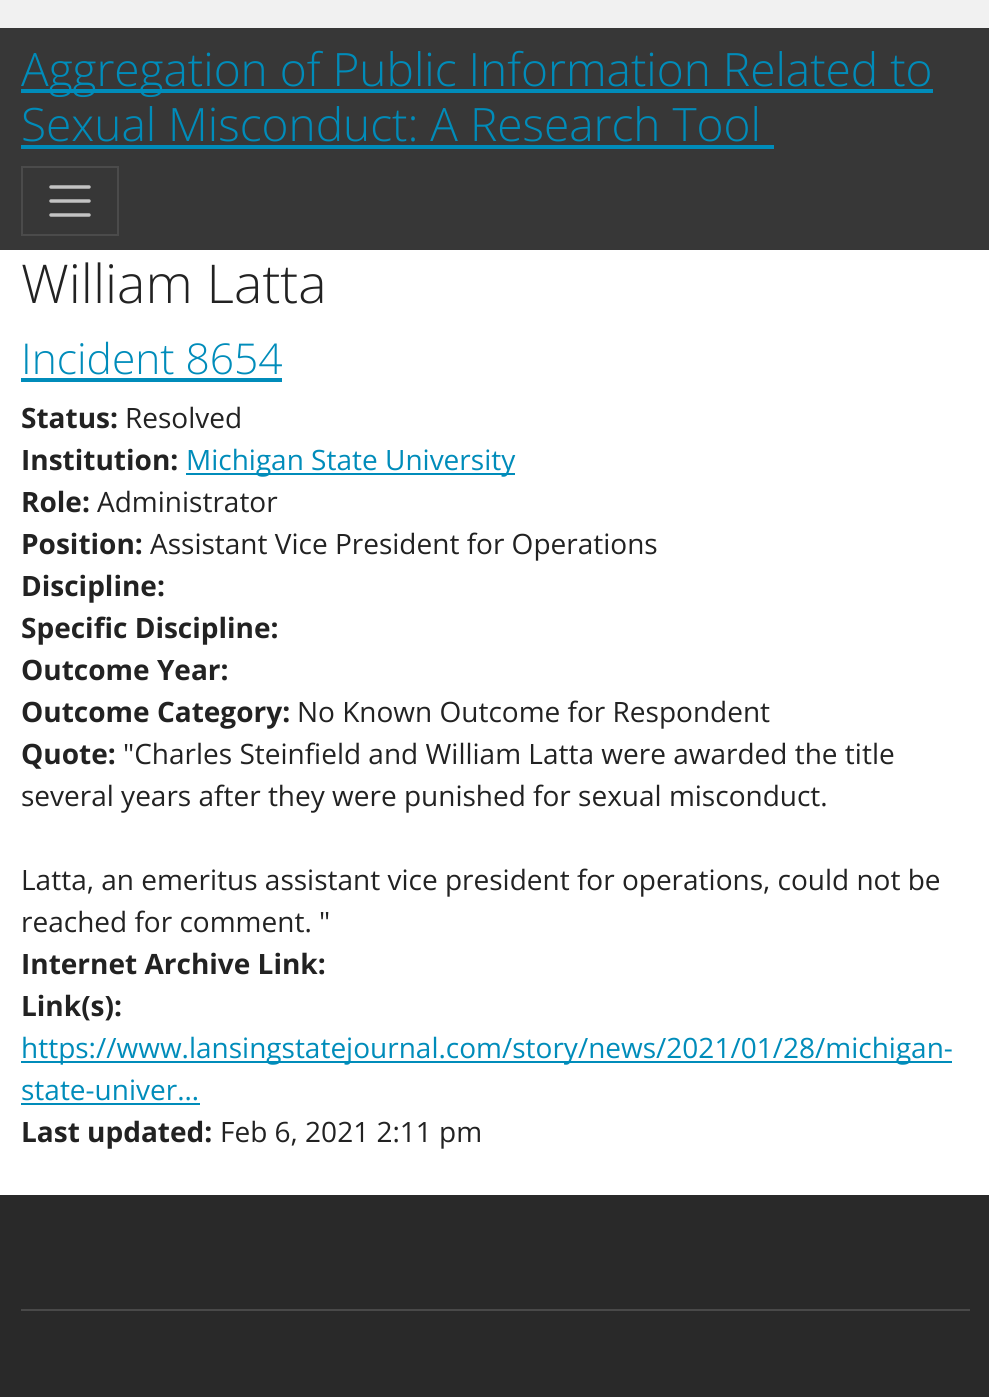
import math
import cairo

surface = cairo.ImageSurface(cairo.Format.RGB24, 989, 1397)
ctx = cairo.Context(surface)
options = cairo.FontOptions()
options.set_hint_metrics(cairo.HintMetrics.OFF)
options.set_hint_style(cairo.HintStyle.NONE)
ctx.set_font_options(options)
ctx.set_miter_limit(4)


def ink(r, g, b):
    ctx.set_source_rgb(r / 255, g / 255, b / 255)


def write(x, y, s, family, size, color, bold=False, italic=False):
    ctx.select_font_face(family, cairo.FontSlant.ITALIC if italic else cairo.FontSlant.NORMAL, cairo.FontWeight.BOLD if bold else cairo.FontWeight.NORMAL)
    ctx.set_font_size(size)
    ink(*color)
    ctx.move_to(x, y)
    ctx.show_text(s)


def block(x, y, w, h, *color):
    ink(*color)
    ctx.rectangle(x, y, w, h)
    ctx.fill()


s1 = dict(family="Open Sans Light", size=46, color=(0, 140, 186))
s2 = dict(family="Open Sans Light", size=53.5, color=(34, 34, 34))
s3 = dict(family="Open Sans Light", size=42.5, color=(0, 140, 186))
s4 = dict(family="Open Sans", size=28, color=(34, 34, 34), bold=True)
s5 = dict(family="Open Sans", size=28, color=(34, 34, 34))
s6 = dict(family="Open Sans", size=28, color=(0, 140, 186))

ink(255, 255, 255)
ctx.paint()
block(0, 0, 989, 28, 241, 241, 241)
block(0, 28, 989, 222, 55, 55, 55)
block(21, 89, 912, 4, 0, 140, 186)
write(21, 86, "Aggregation of Public Information Related to", **s1)
write(21, 141, "Sexual Misconduct: A Research Tool", **s1)
block(21, 145, 753, 4, 0, 140, 186)
ctx.rectangle(22, 167, 96, 68)
ink(75, 75, 75)
ctx.stroke()
ctx.new_path()
ctx.move_to(51, 187)
ctx.line_to(89, 187)
ctx.move_to(51, 201)
ctx.line_to(89, 201)
ctx.move_to(51, 215)
ctx.line_to(89, 215)
ink(195, 195, 195)
ctx.set_line_width(3.5)
ctx.set_line_cap(cairo.LineCap.ROUND)
ctx.stroke()
write(21, 303, "William Latta", **s2)
write(21, 374, "Incident 8654", **s3)
block(21, 378, 261, 4, 0, 140, 186)
write(21, 428, "Status:", **s4)
write(125, 428, "Resolved", **s5)
write(21, 470, "Institution:", **s4)
block(186, 473, 329, 2, 0, 140, 186)
write(186, 470, "Michigan State University", **s6)
write(21, 512, "Role:", **s4)
write(97, 512, "Administrator", **s5)
write(21, 554, "Position:", **s4)
write(150, 554, "Assistant Vice President for Operations", **s5)
write(21, 596, "Discipline:", **s4)
write(21, 638, "Specific Discipline:", **s4)
write(21, 680, "Outcome Year:", **s4)
write(21, 722, "Outcome Category:", **s4)
write(297, 722, "No Known Outcome for Respondent", **s5)
write(21, 764, "Quote:", **s4)
write(123, 764, "\"Charles Steinfield and William Latta were awarded the title", **s5)
write(21, 806, "several years after they were punished for sexual misconduct.", **s5)
write(21, 890, "Latta, an emeritus assistant vice president for operations, could not be", **s5)
write(21, 932, "reached for comment. \"", **s5)
write(21, 974, "Internet Archive Link:", **s4)
write(21, 1016, "Link(s):", **s4)
block(21, 1061, 931, 2, 0, 140, 186)
write(21, 1058, "https://www.lansingstatejournal.com/story/news/2021/01/28/michigan-", **s6)
write(21, 1100, "state-univer…", **s6)
block(21, 1103, 179, 2, 0, 140, 186)
write(21, 1142, "Last updated:", **s4)
write(220, 1142, "Feb 6, 2021 2:11 pm", **s5)
block(0, 1195, 989, 202, 41, 41, 41)
block(21, 1309, 949, 2, 73, 73, 73)
surface.write_to_png("screenshot.png")
